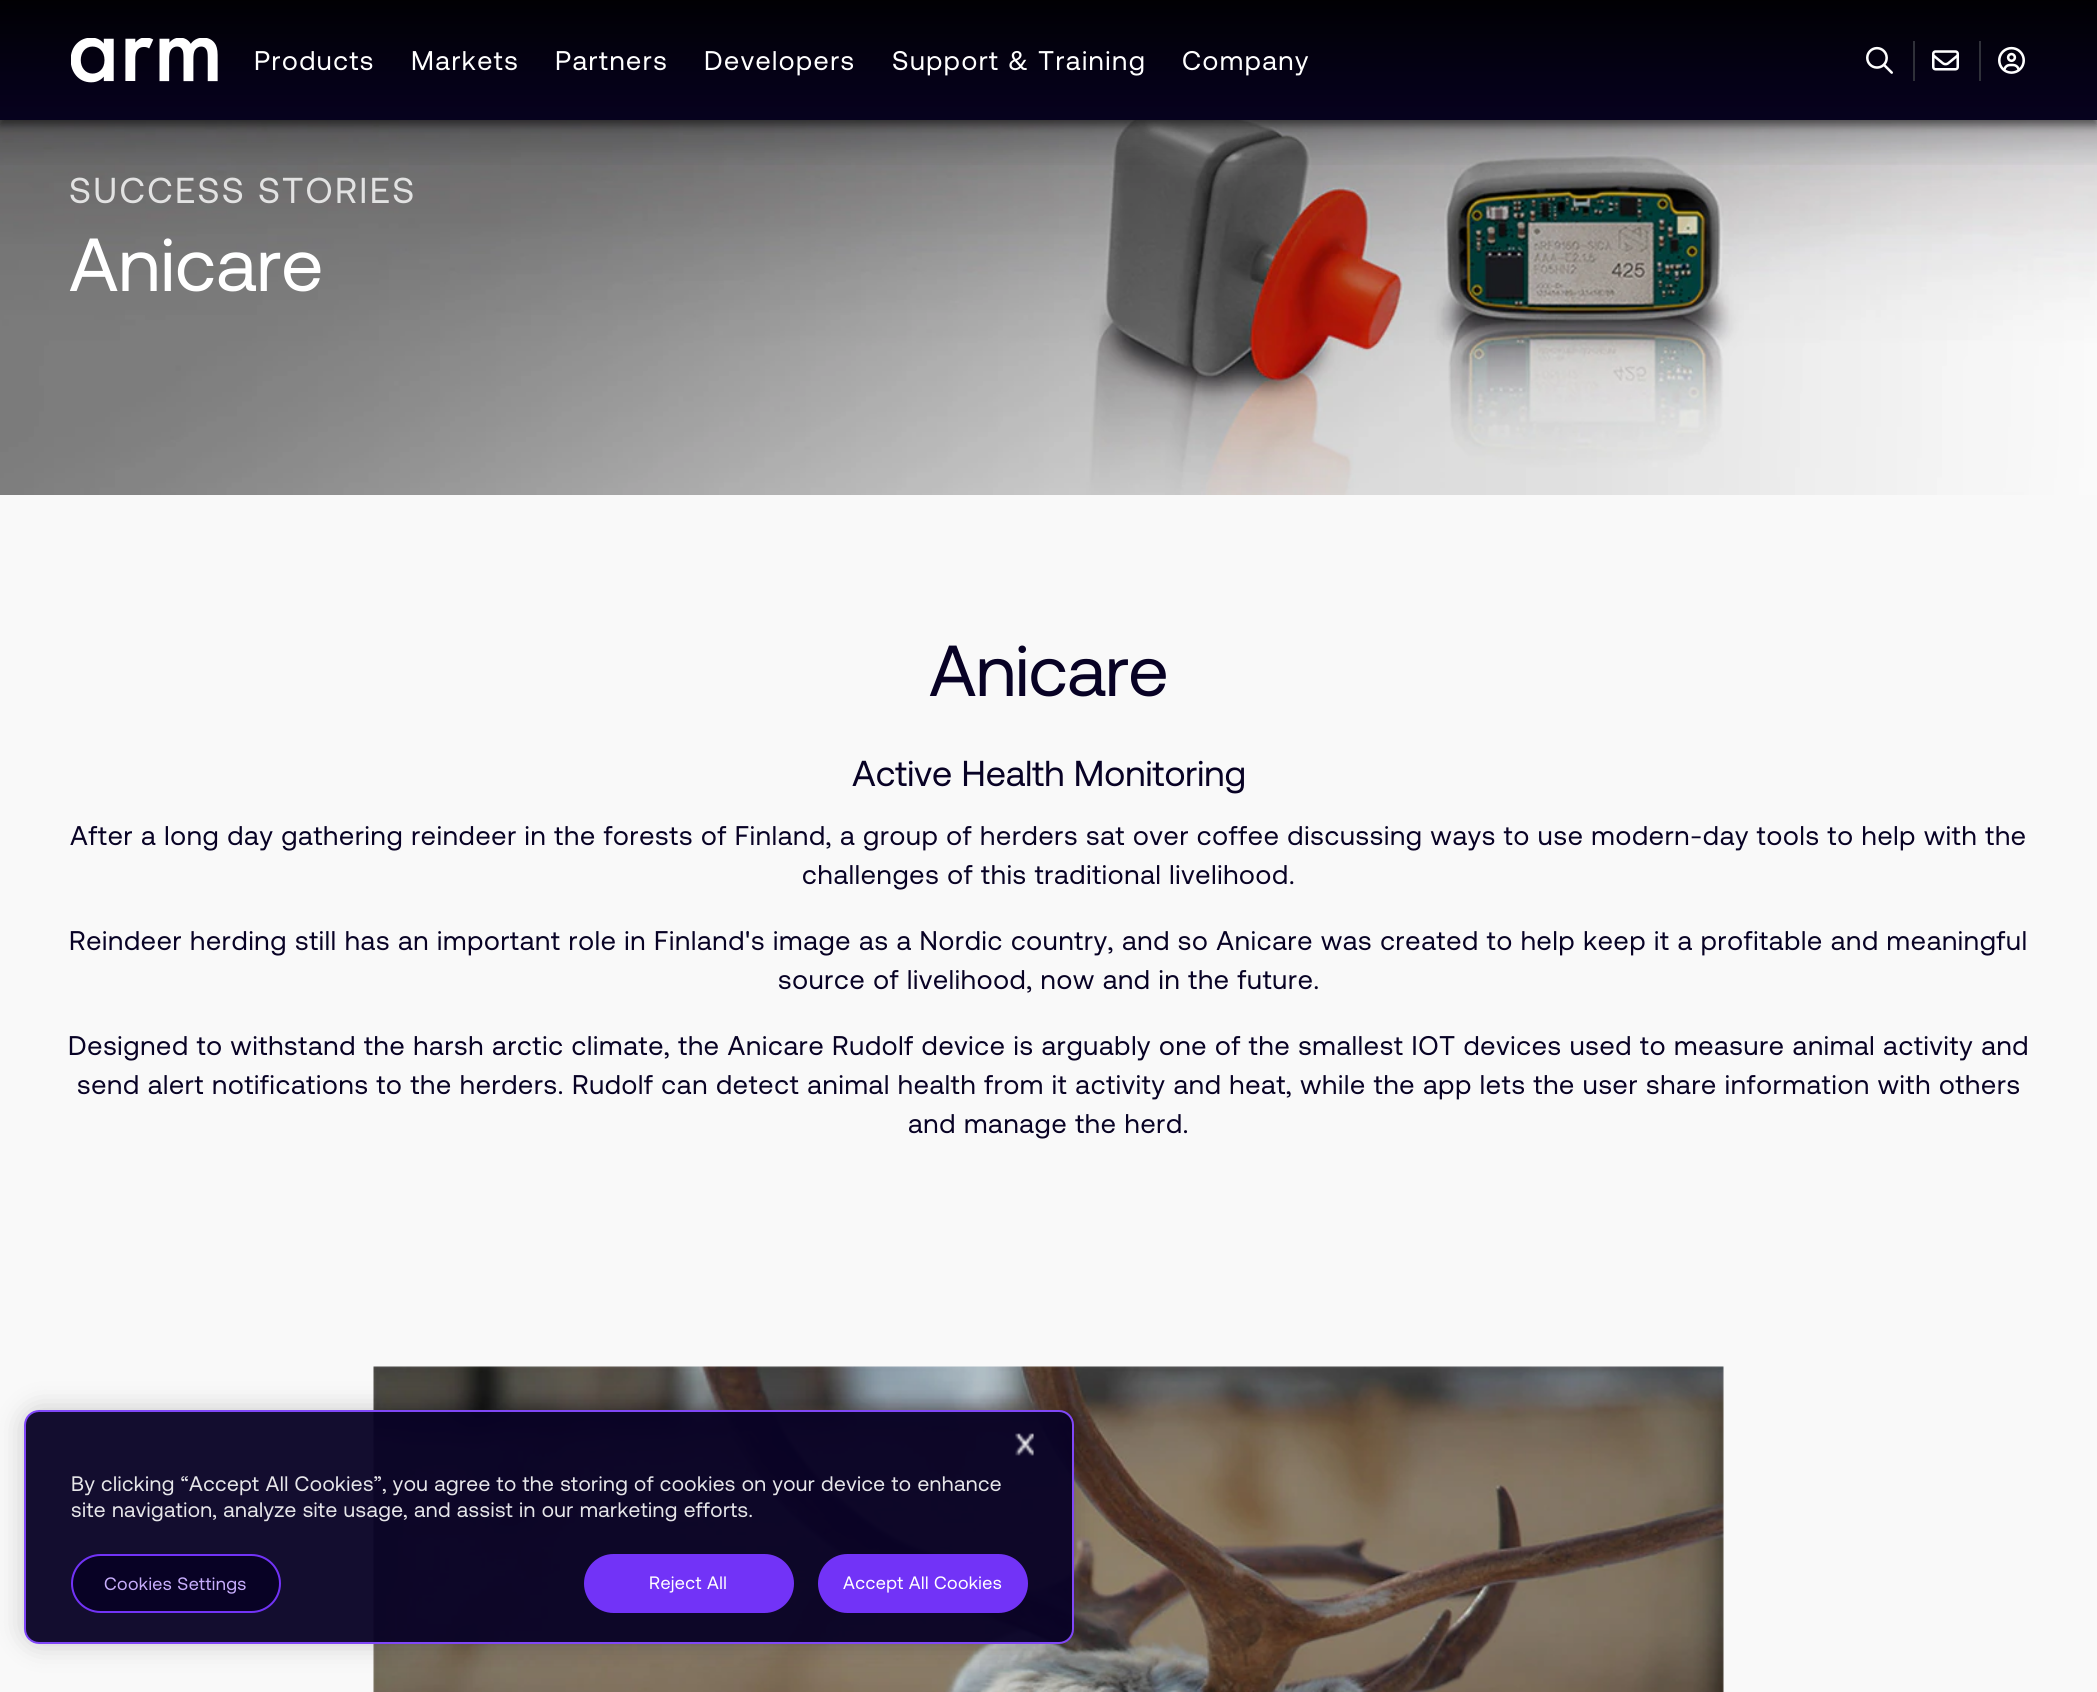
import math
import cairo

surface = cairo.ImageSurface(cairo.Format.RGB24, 2097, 1692)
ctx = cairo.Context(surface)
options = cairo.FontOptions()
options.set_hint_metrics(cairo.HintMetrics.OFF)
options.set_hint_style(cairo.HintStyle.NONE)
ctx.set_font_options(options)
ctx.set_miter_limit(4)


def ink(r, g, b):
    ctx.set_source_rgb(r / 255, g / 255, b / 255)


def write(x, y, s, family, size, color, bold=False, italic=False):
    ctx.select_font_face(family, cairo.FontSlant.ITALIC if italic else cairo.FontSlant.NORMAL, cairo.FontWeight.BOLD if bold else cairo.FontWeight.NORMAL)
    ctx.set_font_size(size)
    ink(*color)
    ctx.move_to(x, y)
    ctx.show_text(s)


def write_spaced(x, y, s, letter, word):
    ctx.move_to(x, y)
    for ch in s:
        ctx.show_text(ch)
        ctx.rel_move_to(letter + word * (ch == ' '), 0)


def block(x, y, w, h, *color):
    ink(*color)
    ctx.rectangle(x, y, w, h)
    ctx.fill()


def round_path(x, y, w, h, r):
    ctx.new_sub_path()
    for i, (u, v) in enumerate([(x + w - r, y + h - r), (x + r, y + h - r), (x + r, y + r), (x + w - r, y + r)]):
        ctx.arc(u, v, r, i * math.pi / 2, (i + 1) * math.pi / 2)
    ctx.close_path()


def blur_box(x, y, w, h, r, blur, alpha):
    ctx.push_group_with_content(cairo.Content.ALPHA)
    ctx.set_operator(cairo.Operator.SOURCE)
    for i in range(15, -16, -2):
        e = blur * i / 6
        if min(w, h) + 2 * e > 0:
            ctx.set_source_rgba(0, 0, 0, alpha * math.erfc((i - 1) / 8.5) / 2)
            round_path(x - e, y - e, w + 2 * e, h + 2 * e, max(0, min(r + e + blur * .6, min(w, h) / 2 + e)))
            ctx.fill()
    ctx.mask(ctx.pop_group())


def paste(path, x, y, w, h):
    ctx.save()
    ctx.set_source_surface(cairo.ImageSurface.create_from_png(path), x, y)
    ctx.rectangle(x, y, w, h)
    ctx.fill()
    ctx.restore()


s1 = dict(family="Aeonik", size=75, color=(255, 255, 255))
s2 = dict(family="Aeonik", size=36, color=(8, 2, 37))

ink(249, 249, 249)
ctx.paint()
paste("pic5.png", 0, 120, 2097, 375)
ink(0, 0, 0)
blur_box(0, 5, 2097, 120, 0, 4.5, 0.5)
block(0, 0, 2097, 120, 8, 2, 37)
gradient = cairo.LinearGradient(1049, 0, 1049, 195)
gradient.add_color_stop_rgba(0, 0, 0, 0, 0.91)
gradient.add_color_stop_rgba(0.4, 0, 0, 0, 0.4)
gradient.add_color_stop_rgba(0.63, 0, 0, 0, 0.17)
gradient.add_color_stop_rgba(0.82, 0, 0, 0, 0.03)
gradient.add_color_stop_rgba(0.88, 0, 0, 0, 0.01)
gradient.add_color_stop_rgba(1, 0, 0, 0, 0)
ctx.set_source(gradient)
ctx.rectangle(0, 0, 2097, 165)
ctx.fill()
paste("pic1.png", 71, 38, 147, 45)
ctx.select_font_face("Aeonik")
ctx.set_font_size(27)
ink(255, 255, 255)
write_spaced(254, 70, "Products", 1.5, 0)
write_spaced(411, 70, "Markets", 1.5, 0)
write_spaced(555, 70, "Partners", 1.5, 0)
write_spaced(704, 70, "Developers", 1.5, 0)
write_spaced(892, 70, "Support & Training", 1.5, 0)
write_spaced(1182, 70, "Company", 1.5, 0)
block(1913, 41, 2, 40, 47, 48, 57)
paste("pic2.png", 1866, 46, 27, 28)
block(1979, 41, 2, 40, 47, 48, 57)
paste("pic3.png", 1932, 50, 27, 21)
paste("pic4.png", 1998, 46, 27, 28)
ctx.set_font_size(36)
ink(226, 226, 226)
write_spaced(69, 203, "SUCCESS STORIES", 2.4, 0)
write(69, 291, "Anicare", **s1)
ctx.set_font_size(72)
ink(8, 2, 37)
write_spaced(929, 696, "Anicare", -0.75, 0)
write(852, 786, "Active Health Monitoring", **s2)
ctx.set_font_size(27)
write_spaced(70, 845, "After a long day gathering reindeer in the forests of Finland, a group of herders sat over coffee discussing ways to use modern-day tools to help with the", 0.75, 0)
write_spaced(802, 884, "challenges of this traditional livelihood.", 0.75, 0)
write_spaced(69, 950, "Reindeer herding still has an important role in Finland's image as a Nordic country, and so Anicare was created to help keep it a profitable and meaningful", 0.75, 0)
write_spaced(778, 989, "source of livelihood, now and in the future.", 0.75, 0)
write_spaced(68, 1055, "Designed to withstand the harsh arctic climate, the Anicare Rudolf device is arguably one of the smallest IOT devices used to measure animal activity and", 0.75, 0)
write_spaced(77, 1094, "send alert notifications to the herders. Rudolf can detect animal health from it activity and heat, while the app lets the user share information with others", 0.75, 0)
write_spaced(908, 1133, "and manage the herd.", 0.75, 0)
paste("pic6.png", 373, 1366, 1351, 326)
ctx.save()
ctx.set_fill_rule(cairo.FillRule.EVEN_ODD)
ctx.new_path()
ctx.move_to(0, 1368)
ctx.line_to(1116, 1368)
ctx.line_to(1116, 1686)
ctx.line_to(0, 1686)
ctx.close_path()
ctx.move_to(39, 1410)
ctx.line_to(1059, 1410)
ctx.curve_to(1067.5, 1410, 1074, 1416.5, 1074, 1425)
ctx.line_to(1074, 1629)
ctx.curve_to(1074, 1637.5, 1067.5, 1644, 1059, 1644)
ctx.line_to(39, 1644)
ctx.curve_to(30.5, 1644, 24, 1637.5, 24, 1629)
ctx.line_to(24, 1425)
ctx.curve_to(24, 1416.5, 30.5, 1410, 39, 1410)
ctx.close_path()
ctx.clip()
ink(0, 0, 0)
blur_box(24, 1410, 1050, 234, 15, 13.5, 0.2)
ctx.restore()
ctx.set_source_rgba(0.031, 0.008, 0.145, 0.95)
round_path(25, 1411, 1048, 232, 14)
ctx.fill_preserve()
ink(128, 71, 248)
ctx.stroke()
paste("pic7.png", 1015, 1433, 19, 23)
ctx.set_font_size(21)
ink(230, 230, 233)
write_spaced(71, 1491, "By clicking “Accept All Cookies”, you agree to the storing of cookies on your device to enhance", 0.42, 0)
write_spaced(71, 1517, "site navigation, analyze site usage, and assist in our marketing efforts.", 0.42, 0)
ink(8, 2, 37)
round_path(72, 1555, 208, 57, 28.5)
ctx.fill_preserve()
ink(114, 51, 247)
ctx.stroke()
ctx.set_font_size(18)
ink(199, 173, 252)
write_spaced(104, 1590, "Cookies Settings", 0.4, 0)
ink(114, 51, 247)
round_path(584, 1554, 210, 59, 29.5)
ctx.fill()
ink(255, 255, 255)
write_spaced(649, 1589, "Reject All", 0.4, 0)
ink(114, 51, 247)
round_path(818, 1554, 210, 59, 29.5)
ctx.fill()
ink(255, 255, 255)
write_spaced(843, 1589, "Accept All Cookies", 0.4, 0)
surface.write_to_png("screenshot.png")
